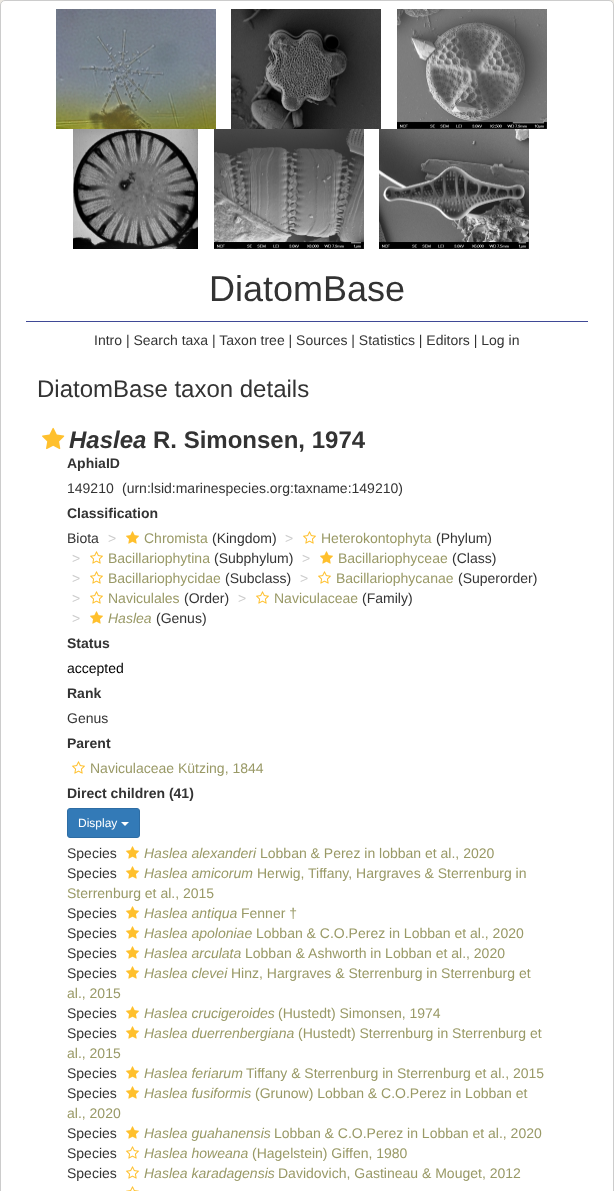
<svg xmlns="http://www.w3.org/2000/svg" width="614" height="1191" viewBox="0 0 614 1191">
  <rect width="100%" height="100%" fill="rgb(236,233,226)"/>
  <rect x="0.5" y="0.5" width="613" height="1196" rx="4.5" fill="rgb(255,255,255)" stroke="rgb(204,204,204)"/>
  <image x="56" y="9" width="160" height="120" href="pic1.png"/>
  <image x="231" y="9" width="150" height="120" href="pic2.png"/>
  <image x="397" y="9" width="150" height="120" href="pic3.png"/>
  <image x="73" y="129" width="125" height="120" href="pic4.png"/>
  <image x="214" y="129" width="150" height="120" href="pic5.png"/>
  <image x="379" y="129" width="150" height="120" href="pic6.png"/>
  <rect x="26" y="321" width="562" height="1" fill="rgb(63,73,150)"/>
  <text x="209" y="301" font-family="Liberation Sans" font-size="36" fill="rgb(51,51,51)">DiatomBase</text>
  <text x="94" y="345" font-family="Liberation Sans" font-size="14" fill="rgb(51,51,51)">Intro | Search taxa | Taxon tree | Sources | Statistics | Editors | Log in</text>
  <text x="37" y="397" font-family="Liberation Sans" font-size="24" fill="rgb(51,51,51)">DiatomBase taxon details</text>
  <image x="42" y="427" width="23" height="23" href="pic7.png"/>
  <text x="69" y="448" font-family="Liberation Sans" font-size="24" font-weight="bold" font-style="italic" fill="rgb(51,51,51)">Haslea</text>
  <text x="153" y="448" font-family="Liberation Sans" font-size="24" font-weight="bold" fill="rgb(51,51,51)">R. Simonsen, 1974</text>
  <text x="67" y="468" font-family="Liberation Sans" font-size="14" font-weight="bold" fill="rgb(51,51,51)">AphiaID</text>
  <g font-family="Liberation Sans" font-size="14" fill="rgb(51,51,51)">
    <text x="67" y="493">149210</text>
    <text x="122" y="493">(urn:lsid:marinespecies.org:taxname:149210)</text>
  </g>
  <text x="67" y="518" font-family="Liberation Sans" font-size="14" font-weight="bold" fill="rgb(51,51,51)">Classification</text>
  <text x="67" y="543" font-family="Liberation Sans" font-size="14" fill="rgb(51,51,51)">Biota</text>
  <text x="108" y="543" font-family="Liberation Sans" font-size="14" fill="rgb(204,204,204)">&gt;</text>
  <image x="126" y="531" width="13" height="13" href="pic8.png"/>
  <text x="144" y="543" font-family="Liberation Sans" font-size="14" fill="rgb(153,153,102)">Chromista</text>
  <text x="212" y="543" font-family="Liberation Sans" font-size="14" fill="rgb(51,51,51)">(Kingdom)</text>
  <text x="285" y="543" font-family="Liberation Sans" font-size="14" fill="rgb(204,204,204)">&gt;</text>
  <image x="303" y="531" width="13" height="13" href="pic9.png"/>
  <text x="321" y="543" font-family="Liberation Sans" font-size="14" fill="rgb(153,153,102)">Heterokontophyta</text>
  <text x="436" y="543" font-family="Liberation Sans" font-size="14" fill="rgb(51,51,51)">(Phylum)</text>
  <text x="72" y="563" font-family="Liberation Sans" font-size="14" fill="rgb(204,204,204)">&gt;</text>
  <image x="90" y="551" width="13" height="13" href="pic9.png"/>
  <text x="108" y="563" font-family="Liberation Sans" font-size="14" fill="rgb(153,153,102)">Bacillariophytina</text>
  <text x="214" y="563" font-family="Liberation Sans" font-size="14" fill="rgb(51,51,51)">(Subphylum)</text>
  <text x="302" y="563" font-family="Liberation Sans" font-size="14" fill="rgb(204,204,204)">&gt;</text>
  <image x="320" y="551" width="13" height="13" href="pic8.png"/>
  <text x="338" y="563" font-family="Liberation Sans" font-size="14" fill="rgb(153,153,102)">Bacillariophyceae</text>
  <text x="452" y="563" font-family="Liberation Sans" font-size="14" fill="rgb(51,51,51)">(Class)</text>
  <text x="72" y="583" font-family="Liberation Sans" font-size="14" fill="rgb(204,204,204)">&gt;</text>
  <image x="90" y="571" width="13" height="13" href="pic9.png"/>
  <text x="108" y="583" font-family="Liberation Sans" font-size="14" fill="rgb(153,153,102)">Bacillariophycidae</text>
  <text x="225" y="583" font-family="Liberation Sans" font-size="14" fill="rgb(51,51,51)">(Subclass)</text>
  <text x="300" y="583" font-family="Liberation Sans" font-size="14" fill="rgb(204,204,204)">&gt;</text>
  <image x="318" y="571" width="13" height="13" href="pic9.png"/>
  <text x="336" y="583" font-family="Liberation Sans" font-size="14" fill="rgb(153,153,102)">Bacillariophycanae</text>
  <text x="458" y="583" font-family="Liberation Sans" font-size="14" fill="rgb(51,51,51)">(Superorder)</text>
  <text x="72" y="603" font-family="Liberation Sans" font-size="14" fill="rgb(204,204,204)">&gt;</text>
  <image x="90" y="591" width="13" height="13" href="pic9.png"/>
  <text x="108" y="603" font-family="Liberation Sans" font-size="14" fill="rgb(153,153,102)">Naviculales</text>
  <text x="184" y="603" font-family="Liberation Sans" font-size="14" fill="rgb(51,51,51)">(Order)</text>
  <text x="238" y="603" font-family="Liberation Sans" font-size="14" fill="rgb(204,204,204)">&gt;</text>
  <image x="256" y="591" width="13" height="13" href="pic9.png"/>
  <text x="274" y="603" font-family="Liberation Sans" font-size="14" fill="rgb(153,153,102)">Naviculaceae</text>
  <text x="362" y="603" font-family="Liberation Sans" font-size="14" fill="rgb(51,51,51)">(Family)</text>
  <text x="72" y="623" font-family="Liberation Sans" font-size="14" fill="rgb(204,204,204)">&gt;</text>
  <image x="90" y="611" width="13" height="13" href="pic8.png"/>
  <text x="108" y="623" font-family="Liberation Sans" font-size="14" font-style="italic" fill="rgb(153,153,102)">Haslea</text>
  <text x="156" y="623" font-family="Liberation Sans" font-size="14" fill="rgb(51,51,51)">(Genus)</text>
  <text x="67" y="648" font-family="Liberation Sans" font-size="14" font-weight="bold" fill="rgb(51,51,51)">Status</text>
  <text x="67" y="673" font-family="Liberation Sans" font-size="14" fill="rgb(0,0,0)">accepted</text>
  <text x="67" y="698" font-family="Liberation Sans" font-size="14" font-weight="bold" fill="rgb(51,51,51)">Rank</text>
  <text x="67" y="723" font-family="Liberation Sans" font-size="14" fill="rgb(51,51,51)">Genus</text>
  <text x="67" y="748" font-family="Liberation Sans" font-size="14" font-weight="bold" fill="rgb(51,51,51)">Parent</text>
  <image x="72" y="761" width="13" height="13" href="pic9.png"/>
  <text x="90" y="773" font-family="Liberation Sans" font-size="14" fill="rgb(153,153,102)">Naviculaceae Kützing, 1844</text>
  <text x="67" y="798" font-family="Liberation Sans" font-size="14" font-weight="bold" fill="rgb(51,51,51)">Direct children (41)</text>
  <rect x="67.5" y="808.5" width="72" height="29" rx="2.5" fill="rgb(51,122,183)" stroke="rgb(46,109,164)"/>
  <text x="78" y="827" font-family="Liberation Sans" font-size="12" fill="rgb(255,255,255)">Display</text>
  <path d="M121 822H129L125 826Z" fill="rgb(255,255,255)"/>
  <text x="67" y="858" font-family="Liberation Sans" font-size="14" fill="rgb(51,51,51)">Species</text>
  <image x="126" y="846" width="13" height="13" href="pic8.png"/>
  <text x="144" y="858" font-family="Liberation Sans" font-size="14" font-style="italic" fill="rgb(153,153,102)">Haslea alexanderi</text>
  <text x="260" y="858" font-family="Liberation Sans" font-size="14" fill="rgb(153,153,102)">Lobban &amp; Perez in lobban et al., 2020</text>
  <text x="67" y="878" font-family="Liberation Sans" font-size="14" fill="rgb(51,51,51)">Species</text>
  <image x="126" y="866" width="13" height="13" href="pic8.png"/>
  <text x="144" y="878" font-family="Liberation Sans" font-size="14" font-style="italic" fill="rgb(153,153,102)">Haslea amicorum</text>
  <g font-family="Liberation Sans" font-size="14" fill="rgb(153,153,102)">
    <text x="257" y="878">Herwig, Tiffany, Hargraves &amp; Sterrenburg in</text>
    <text x="67" y="898">Sterrenburg et al., 2015</text>
  </g>
  <text x="67" y="918" font-family="Liberation Sans" font-size="14" fill="rgb(51,51,51)">Species</text>
  <image x="126" y="906" width="13" height="13" href="pic8.png"/>
  <text x="144" y="918" font-family="Liberation Sans" font-size="14" font-style="italic" fill="rgb(153,153,102)">Haslea antiqua</text>
  <text x="241" y="918" font-family="Liberation Sans" font-size="14" fill="rgb(153,153,102)">Fenner †</text>
  <text x="67" y="938" font-family="Liberation Sans" font-size="14" fill="rgb(51,51,51)">Species</text>
  <image x="126" y="926" width="13" height="13" href="pic8.png"/>
  <text x="144" y="938" font-family="Liberation Sans" font-size="14" font-style="italic" fill="rgb(153,153,102)">Haslea apoloniae</text>
  <text x="256" y="938" font-family="Liberation Sans" font-size="14" fill="rgb(153,153,102)">Lobban &amp; C.O.Perez in Lobban et al., 2020</text>
  <text x="67" y="958" font-family="Liberation Sans" font-size="14" fill="rgb(51,51,51)">Species</text>
  <image x="126" y="946" width="13" height="13" href="pic8.png"/>
  <text x="144" y="958" font-family="Liberation Sans" font-size="14" font-style="italic" fill="rgb(153,153,102)">Haslea arculata</text>
  <text x="245" y="958" font-family="Liberation Sans" font-size="14" fill="rgb(153,153,102)">Lobban &amp; Ashworth in Lobban et al., 2020</text>
  <text x="67" y="978" font-family="Liberation Sans" font-size="14" fill="rgb(51,51,51)">Species</text>
  <image x="126" y="966" width="13" height="13" href="pic8.png"/>
  <text x="144" y="978" font-family="Liberation Sans" font-size="14" font-style="italic" fill="rgb(153,153,102)">Haslea clevei</text>
  <g font-family="Liberation Sans" font-size="14" fill="rgb(153,153,102)">
    <text x="231" y="978">Hinz, Hargraves &amp; Sterrenburg in Sterrenburg et</text>
    <text x="67" y="998">al., 2015</text>
  </g>
  <text x="67" y="1018" font-family="Liberation Sans" font-size="14" fill="rgb(51,51,51)">Species</text>
  <image x="126" y="1006" width="13" height="13" href="pic8.png"/>
  <text x="144" y="1018" font-family="Liberation Sans" font-size="14" font-style="italic" fill="rgb(153,153,102)">Haslea crucigeroides</text>
  <text x="278" y="1018" font-family="Liberation Sans" font-size="14" fill="rgb(153,153,102)">(Hustedt) Simonsen, 1974</text>
  <text x="67" y="1038" font-family="Liberation Sans" font-size="14" fill="rgb(51,51,51)">Species</text>
  <image x="126" y="1026" width="13" height="13" href="pic8.png"/>
  <text x="144" y="1038" font-family="Liberation Sans" font-size="14" font-style="italic" fill="rgb(153,153,102)">Haslea duerrenbergiana</text>
  <g font-family="Liberation Sans" font-size="14" fill="rgb(153,153,102)">
    <text x="298" y="1038">(Hustedt) Sterrenburg in Sterrenburg et</text>
    <text x="67" y="1058">al., 2015</text>
  </g>
  <text x="67" y="1078" font-family="Liberation Sans" font-size="14" fill="rgb(51,51,51)">Species</text>
  <image x="126" y="1066" width="13" height="13" href="pic8.png"/>
  <text x="144" y="1078" font-family="Liberation Sans" font-size="14" font-style="italic" fill="rgb(153,153,102)">Haslea feriarum</text>
  <text x="246" y="1078" font-family="Liberation Sans" font-size="14" fill="rgb(153,153,102)">Tiffany &amp; Sterrenburg in Sterrenburg et al., 2015</text>
  <text x="67" y="1098" font-family="Liberation Sans" font-size="14" fill="rgb(51,51,51)">Species</text>
  <image x="126" y="1086" width="13" height="13" href="pic8.png"/>
  <text x="144" y="1098" font-family="Liberation Sans" font-size="14" font-style="italic" fill="rgb(153,153,102)">Haslea fusiformis</text>
  <g font-family="Liberation Sans" font-size="14" fill="rgb(153,153,102)">
    <text x="255" y="1098">(Grunow) Lobban &amp; C.O.Perez in Lobban et</text>
    <text x="67" y="1118">al., 2020</text>
  </g>
  <text x="67" y="1138" font-family="Liberation Sans" font-size="14" fill="rgb(51,51,51)">Species</text>
  <image x="126" y="1126" width="13" height="13" href="pic8.png"/>
  <text x="144" y="1138" font-family="Liberation Sans" font-size="14" font-style="italic" fill="rgb(153,153,102)">Haslea guahanensis</text>
  <text x="274" y="1138" font-family="Liberation Sans" font-size="14" fill="rgb(153,153,102)">Lobban &amp; C.O.Perez in Lobban et al., 2020</text>
  <text x="67" y="1158" font-family="Liberation Sans" font-size="14" fill="rgb(51,51,51)">Species</text>
  <image x="126" y="1146" width="13" height="13" href="pic9.png"/>
  <text x="144" y="1158" font-family="Liberation Sans" font-size="14" font-style="italic" fill="rgb(153,153,102)">Haslea howeana</text>
  <text x="252" y="1158" font-family="Liberation Sans" font-size="14" fill="rgb(153,153,102)">(Hagelstein) Giffen, 1980</text>
  <text x="67" y="1178" font-family="Liberation Sans" font-size="14" fill="rgb(51,51,51)">Species</text>
  <image x="126" y="1166" width="13" height="13" href="pic9.png"/>
  <text x="144" y="1178" font-family="Liberation Sans" font-size="14" font-style="italic" fill="rgb(153,153,102)">Haslea karadagensis</text>
  <text x="278" y="1178" font-family="Liberation Sans" font-size="14" fill="rgb(153,153,102)">Davidovich, Gastineau &amp; Mouget, 2012</text>
  <image x="126" y="1186" width="13" height="5" href="pic10.png"/>
</svg>
